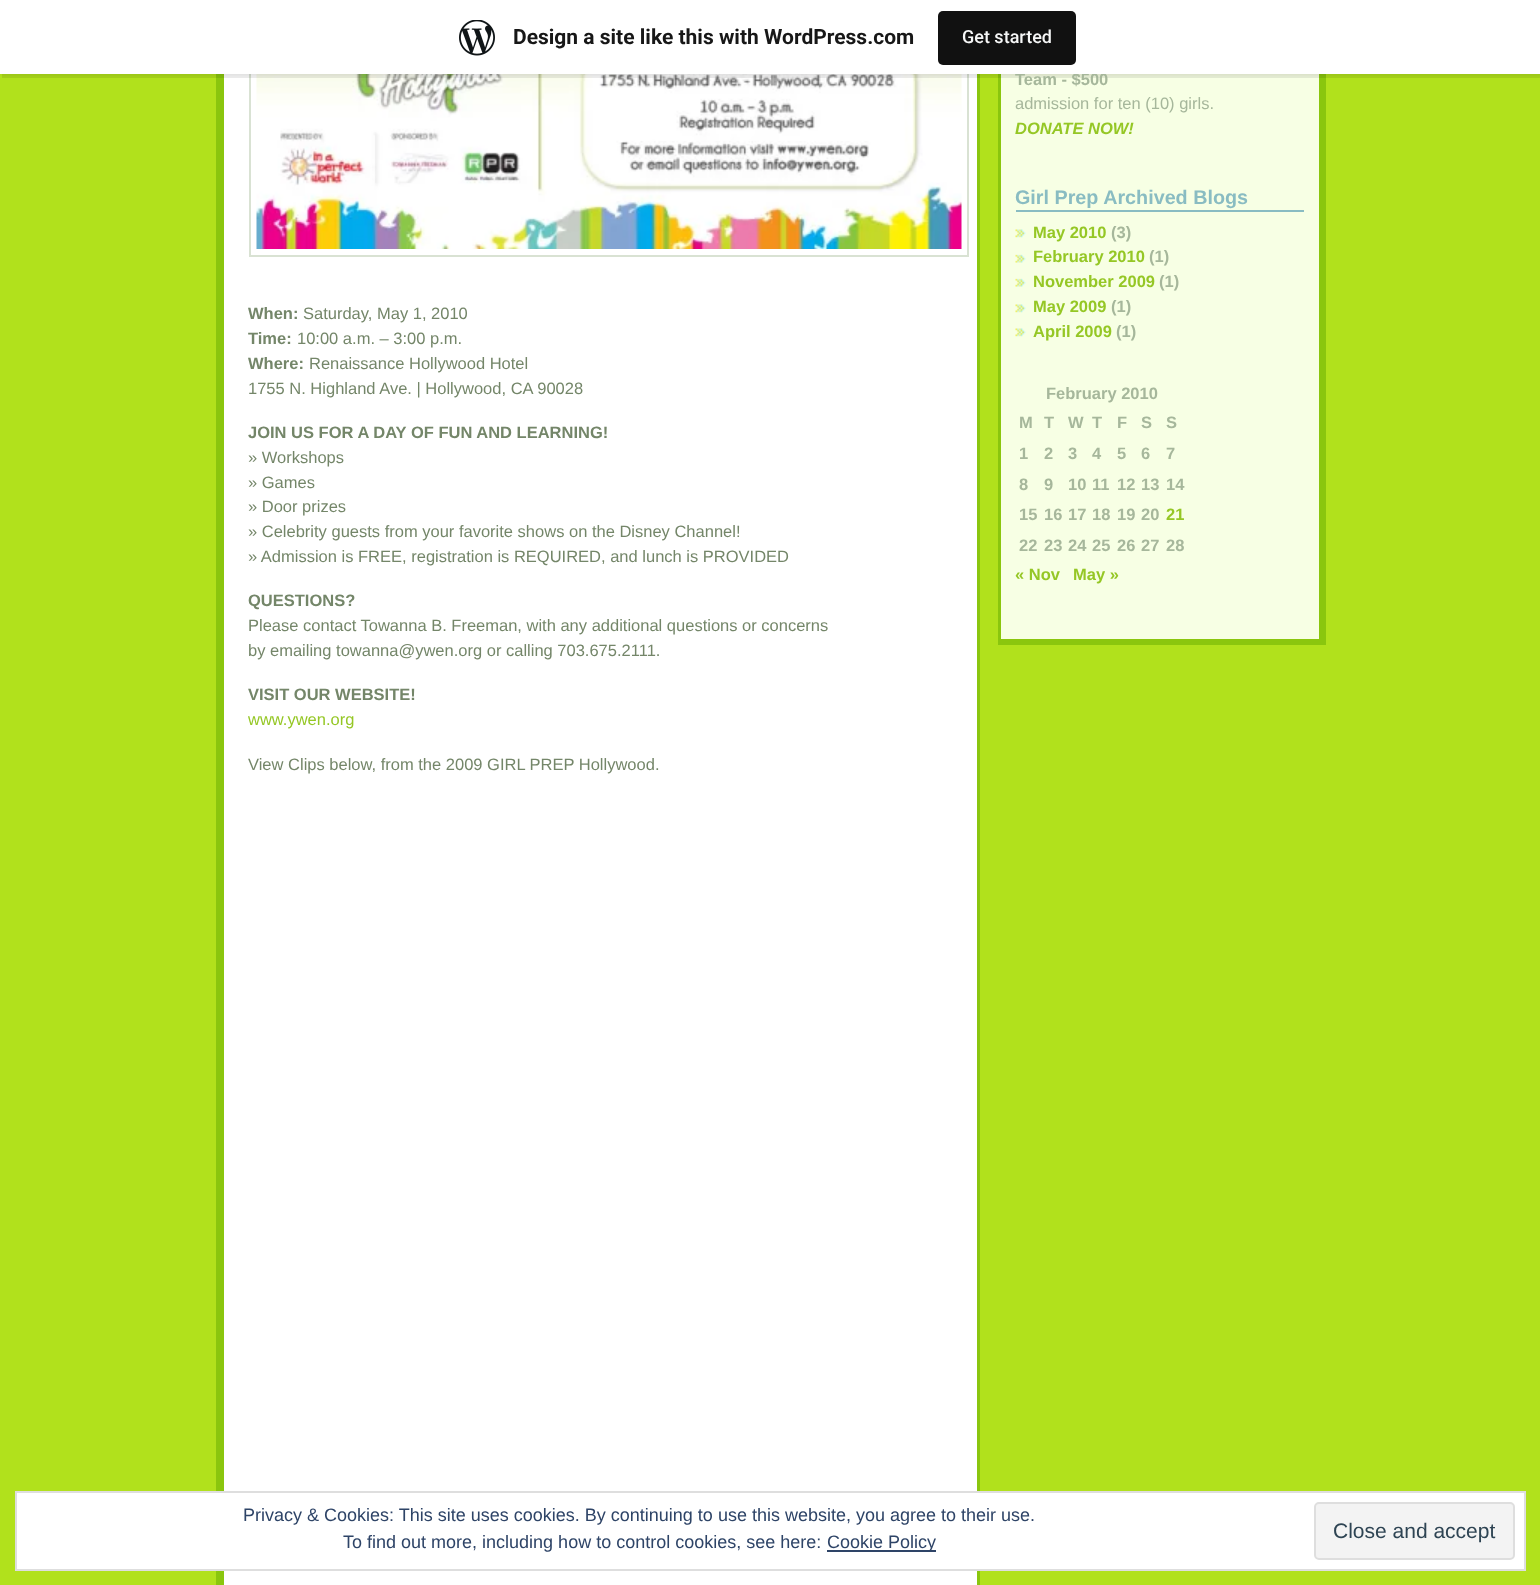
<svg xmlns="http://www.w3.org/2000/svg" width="1540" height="1585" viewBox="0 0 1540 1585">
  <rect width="100%" height="100%" fill="rgb(177,225,28)"/>
  <rect x="224" y="74" width="753" height="1511" fill="rgb(255,255,255)"/>
  <rect x="977" y="74" width="3" height="1511" fill="rgb(138,198,14)"/>
  <rect x="216" y="74" width="8" height="1511" fill="rgb(138,198,14)"/>
  <rect x="250" y="-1" width="718" height="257" fill="none" stroke="rgb(217,226,211)" stroke-width="2"/>
  <image x="256" y="74" width="706" height="175" href="pic2.png"/>
  <rect x="1001" y="74" width="318" height="565" fill="rgb(247,255,228)"/>
  <rect x="1319" y="74" width="7" height="571" fill="rgb(138,198,14)"/>
  <rect x="998" y="639" width="328" height="6" fill="rgb(138,198,14)"/>
  <rect x="998" y="74" width="3" height="571" fill="rgb(138,198,14)"/>
  <rect x="0" y="2" width="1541" height="73" fill="rgba(0,0,0,0.05)" filter="blur(1.5px)"/>
  <path d="M2 74V78H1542V5H1540V74Z" fill="rgba(0,0,0,0.08)"/>
  <text x="1015" y="85" font-family="Liberation Sans" font-size="16.5" font-weight="bold" fill="rgb(166,183,155)">Team - $500</text>
  <rect x="0" y="0" width="1540" height="74" fill="rgb(255,255,255)"/>
  <image x="459" y="20" width="36" height="36" href="pic1.png"/>
  <text x="513" y="44" font-family="Roboto" font-size="21" font-weight="bold" fill="rgb(23,23,23)">Design a site like this with WordPress.com</text>
  <rect x="938" y="11" width="138" height="54" rx="5" fill="rgb(17,17,17)"/>
  <text x="962" y="43" font-family="Roboto" font-size="18" font-weight="500" fill="rgb(246,247,247)">Get started</text>
  <text x="248" y="319" font-family="Liberation Sans" font-size="16.5" font-weight="bold" fill="rgb(116,134,105)">When:</text>
  <text x="303" y="319" font-family="Liberation Sans" font-size="16.5" fill="rgb(116,134,105)">Saturday, May 1, 2010</text>
  <text x="248" y="344" font-family="Liberation Sans" font-size="16.5" font-weight="bold" fill="rgb(116,134,105)">Time:</text>
  <text x="297" y="344" font-family="Liberation Sans" font-size="16.5" fill="rgb(116,134,105)">10:00 a.m. – 3:00 p.m.</text>
  <text x="248" y="369" font-family="Liberation Sans" font-size="16.5" font-weight="bold" fill="rgb(116,134,105)">Where:</text>
  <g font-family="Liberation Sans" font-size="16.5" fill="rgb(116,134,105)">
    <text x="309" y="369">Renaissance Hollywood Hotel</text>
    <text x="248" y="394">1755 N. Highland Ave. | Hollywood, CA 90028</text>
  </g>
  <text x="248" y="438" font-family="Liberation Sans" font-size="16.5" font-weight="bold" fill="rgb(116,134,105)">JOIN US FOR A DAY OF FUN AND LEARNING!</text>
  <g font-family="Liberation Sans" font-size="16.5" fill="rgb(116,134,105)">
    <text>
      <tspan x="248" y="463">» Workshops</tspan>
      <tspan x="248" y="488">» Games</tspan>
      <tspan x="248" y="512">» Door prizes</tspan>
      <tspan x="248" y="537">» Celebrity guests from your favorite shows on the Disney Channel!</tspan>
      <tspan x="248" y="562">» Admission is FREE, registration is REQUIRED, and lunch is PROVIDED</tspan>
    </text>
  </g>
  <text x="248" y="606" font-family="Liberation Sans" font-size="16.5" font-weight="bold" fill="rgb(116,134,105)">QUESTIONS?</text>
  <g font-family="Liberation Sans" font-size="16.5" fill="rgb(116,134,105)">
    <text>
      <tspan x="248" y="631">Please contact Towanna B. Freeman, with any additional questions or concerns</tspan>
      <tspan x="248" y="656">by emailing towanna@ywen.org or calling 703.675.2111.</tspan>
    </text>
  </g>
  <text x="248" y="700" font-family="Liberation Sans" font-size="16.5" font-weight="bold" fill="rgb(116,134,105)">VISIT OUR WEBSITE!</text>
  <text x="248" y="725" font-family="Liberation Sans" font-size="16.5" fill="rgb(149,199,37)">www.ywen.org</text>
  <text x="248" y="770" font-family="Liberation Sans" font-size="16.5" fill="rgb(116,134,105)">View Clips below, from the 2009 GIRL PREP Hollywood.</text>
  <text x="1015" y="109" font-family="Liberation Sans" font-size="16.5" fill="rgb(166,183,155)">admission for ten (10) girls.</text>
  <text x="1015" y="134" font-family="Liberation Sans" font-size="16.5" font-weight="bold" font-style="italic" fill="rgb(149,199,37)">DONATE NOW!</text>
  <rect x="1016" y="210" width="288" height="2" fill="rgb(137,188,194)"/>
  <text x="1015" y="204" font-family="Liberation Sans" font-size="19.75" font-weight="bold" fill="rgb(137,188,194)">Girl Prep Archived Blogs</text>
  <image x="1015" y="229" width="11" height="9" href="pic3.png"/>
  <text x="1033" y="238" font-family="Liberation Sans" font-size="16.5" font-weight="bold" fill="rgb(149,199,37)">May 2010</text>
  <text x="1111" y="238" font-family="Liberation Sans" font-size="16.5" font-weight="bold" fill="rgb(166,183,155)">(3)</text>
  <image x="1015" y="254" width="11" height="9" href="pic4.png"/>
  <text x="1033" y="262" font-family="Liberation Sans" font-size="16.5" font-weight="bold" fill="rgb(149,199,37)">February 2010</text>
  <text x="1149" y="262" font-family="Liberation Sans" font-size="16.5" font-weight="bold" fill="rgb(166,183,155)">(1)</text>
  <image x="1015" y="278" width="11" height="9" href="pic4.png"/>
  <text x="1033" y="287" font-family="Liberation Sans" font-size="16.5" font-weight="bold" fill="rgb(149,199,37)">November 2009</text>
  <text x="1159" y="287" font-family="Liberation Sans" font-size="16.5" font-weight="bold" fill="rgb(166,183,155)">(1)</text>
  <image x="1015" y="304" width="11" height="9" href="pic3.png"/>
  <text x="1033" y="312" font-family="Liberation Sans" font-size="16.5" font-weight="bold" fill="rgb(149,199,37)">May 2009</text>
  <text x="1111" y="312" font-family="Liberation Sans" font-size="16.5" font-weight="bold" fill="rgb(166,183,155)">(1)</text>
  <image x="1015" y="328" width="11" height="9" href="pic3.png"/>
  <text x="1033" y="337" font-family="Liberation Sans" font-size="16.5" font-weight="bold" fill="rgb(149,199,37)">April 2009</text>
  <g font-family="Liberation Sans" font-size="16.5" font-weight="bold" fill="rgb(166,183,155)">
    <text x="1116" y="337">(1)</text>
    <text x="1046" y="399">February 2010</text>
    <text x="1019" y="428">M</text>
    <text x="1044" y="428">T</text>
    <text x="1068" y="428">W</text>
    <text x="1092" y="428">T</text>
    <text x="1117" y="428">F</text>
    <text x="1141" y="428">S</text>
    <text x="1166" y="428">S</text>
    <text x="1019" y="459">1</text>
    <text x="1044" y="459">2</text>
    <text x="1068" y="459">3</text>
    <text x="1092" y="459">4</text>
    <text x="1117" y="459">5</text>
    <text x="1141" y="459">6</text>
    <text x="1166" y="459">7</text>
    <text x="1019" y="490">8</text>
    <text x="1044" y="490">9</text>
    <text x="1068" y="490">10</text>
    <text x="1092" y="490">11</text>
    <text x="1117" y="490">12</text>
    <text x="1141" y="490">13</text>
    <text x="1166" y="490">14</text>
    <text x="1019" y="520">15</text>
    <text x="1044" y="520">16</text>
    <text x="1068" y="520">17</text>
    <text x="1092" y="520">18</text>
    <text x="1117" y="520">19</text>
    <text x="1141" y="520">20</text>
  </g>
  <text x="1166" y="520" font-family="Liberation Sans" font-size="16.5" font-weight="bold" fill="rgb(149,199,37)">21</text>
  <g font-family="Liberation Sans" font-size="16.5" font-weight="bold" fill="rgb(166,183,155)">
    <text x="1019" y="551">22</text>
    <text x="1044" y="551">23</text>
    <text x="1068" y="551">24</text>
    <text x="1092" y="551">25</text>
    <text x="1117" y="551">26</text>
    <text x="1141" y="551">27</text>
    <text x="1166" y="551">28</text>
  </g>
  <g font-family="Liberation Sans" font-size="16.5" font-weight="bold" fill="rgb(149,199,37)">
    <text x="1015" y="580">« Nov</text>
    <text x="1073" y="580">May »</text>
  </g>
  <rect x="16" y="1492" width="1509" height="78" fill="rgb(255,255,255)" stroke="rgb(222,222,222)" stroke-width="2"/>
  <g font-family="Liberation Sans" font-size="18" fill="rgb(46,68,103)">
    <text x="243" y="1521">Privacy &amp; Cookies: This site uses cookies. By continuing to use this website, you agree to their use.</text>
    <text x="343" y="1548">To find out more, including how to control cookies, see here:</text>
  </g>
  <rect x="827" y="1550" width="109" height="2" fill="rgb(46,68,103)"/>
  <text x="827" y="1548" font-family="Liberation Sans" font-size="18" fill="rgb(46,68,103)">Cookie Policy</text>
  <rect x="1315" y="1503" width="199" height="56" rx="4" fill="rgb(243,243,243)" stroke="rgb(222,222,222)" stroke-width="2"/>
  <text x="1333" y="1538" font-family="Liberation Sans" font-size="21" fill="rgb(46,68,83)">Close and accept</text>
</svg>
